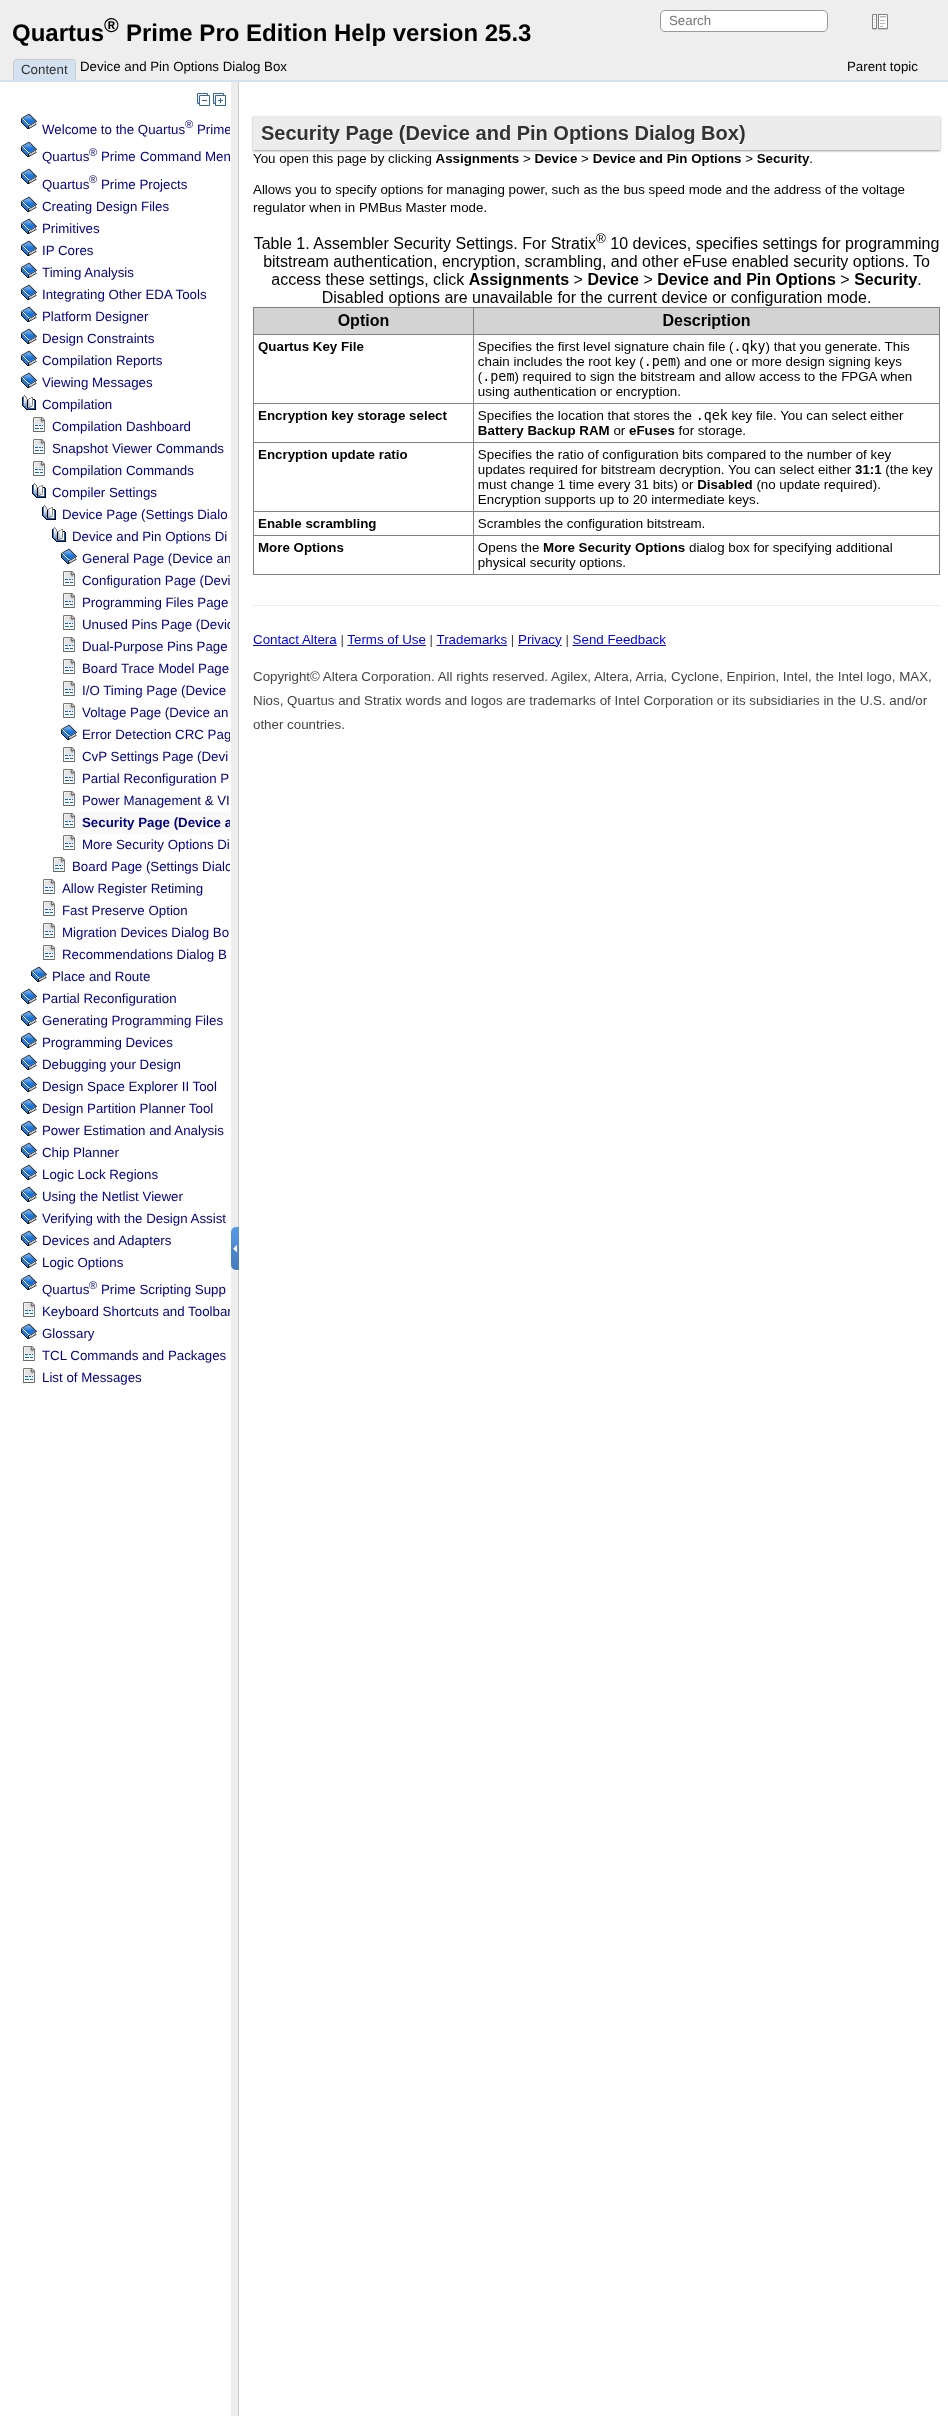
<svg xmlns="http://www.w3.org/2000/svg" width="948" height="2419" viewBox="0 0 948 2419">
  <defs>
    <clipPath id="clip1"><rect x="1" y="83" width="229" height="2334"/></clipPath>
  </defs>
  <rect width="100%" height="100%" fill="rgb(255,255,255)"/>
  <rect x="0" y="0" width="948" height="80" fill="rgb(238,238,238)"/>
  <text x="12" y="41" font-family="Liberation Sans" font-size="24" font-weight="bold" fill="rgb(0,0,0)">Quartus</text>
  <text x="104" y="32" font-family="Liberation Sans" font-size="20" font-weight="bold" fill="rgb(0,0,0)">®</text>
  <text x="126" y="41" font-family="Liberation Sans" font-size="24" font-weight="bold" fill="rgb(0,0,0)">Prime Pro Edition Help version 25.3</text>
  <rect x="660.5" y="10.5" width="167" height="21" rx="4.5" fill="rgb(255,255,255)" stroke="rgb(153,153,153)"/>
  <text x="669" y="25" font-family="Liberation Sans" font-size="13.3" fill="rgb(117,117,117)">Search</text>
  <image x="872" y="14" width="16" height="16" href="pic1.png"/>
  <path d="M17 59H72C74 59 76 61 76 63V80H13V63C13 61 15 59 17 59Z" fill="rgb(211,225,241)"/>
  <path d="M17 59H72C74 59 76 61 76 63V80H13V63C13 61 15 59 17 59ZM17 60H72C74 60 75 61 75 63V80H14V63C14 61 15 60 17 60Z" fill="rgb(204,204,204)" fill-rule="evenodd"/>
  <text x="21" y="74" font-family="Liberation Sans" font-size="13.3" fill="rgb(51,51,51)">Content</text>
  <g font-family="Liberation Sans" font-size="13.3" fill="rgb(0,0,0)">
    <text x="80" y="71">Device and Pin Options Dialog Box</text>
    <text x="847" y="71">Parent topic</text>
  </g>
  <rect x="0" y="80" width="948" height="2" fill="rgb(211,225,241)"/>
  <image x="197" y="93" width="13" height="13" href="pic2.png"/>
  <image x="213" y="93" width="13" height="13" href="pic3.png"/>
  <image x="21" y="113" width="16" height="16" href="pic4.png"/>
  <text x="42" y="134" font-family="Liberation Sans" font-size="13.3" fill="rgb(0,0,128)">Welcome to the Quartus</text>
  <text x="185" y="128" font-family="Liberation Sans" font-size="11" fill="rgb(0,0,128)">®</text>
  <g clip-path="url(#clip1)">
    <text x="197" y="134" font-family="Liberation Sans" font-size="13.3" fill="rgb(0,0,128)">Prime</text>
  </g>
  <image x="21" y="141" width="16" height="16" href="pic4.png"/>
  <text x="42" y="161" font-family="Liberation Sans" font-size="13.3" fill="rgb(0,0,128)">Quartus</text>
  <text x="89" y="156" font-family="Liberation Sans" font-size="11" fill="rgb(0,0,128)">®</text>
  <text x="101" y="161" font-family="Liberation Sans" font-size="13.3" fill="rgb(0,0,128)">Prime</text>
  <g clip-path="url(#clip1)">
    <text x="140" y="161" font-family="Liberation Sans" font-size="13.3" fill="rgb(0,0,128)">Command Men</text>
  </g>
  <image x="21" y="168" width="16" height="16" href="pic4.png"/>
  <text x="42" y="189" font-family="Liberation Sans" font-size="13.3" fill="rgb(0,0,128)">Quartus</text>
  <text x="89" y="183" font-family="Liberation Sans" font-size="11" fill="rgb(0,0,128)">®</text>
  <text x="101" y="189" font-family="Liberation Sans" font-size="13.3" fill="rgb(0,0,128)">Prime Projects</text>
  <image x="21" y="196" width="16" height="16" href="pic4.png"/>
  <text x="42" y="211" font-family="Liberation Sans" font-size="13.3" fill="rgb(0,0,128)">Creating Design Files</text>
  <image x="21" y="218" width="16" height="16" href="pic4.png"/>
  <text x="42" y="233" font-family="Liberation Sans" font-size="13.3" fill="rgb(0,0,128)">Primitives</text>
  <image x="21" y="240" width="16" height="16" href="pic4.png"/>
  <text x="42" y="255" font-family="Liberation Sans" font-size="13.3" fill="rgb(0,0,128)">IP Cores</text>
  <image x="21" y="262" width="16" height="16" href="pic4.png"/>
  <text x="42" y="277" font-family="Liberation Sans" font-size="13.3" fill="rgb(0,0,128)">Timing Analysis</text>
  <image x="21" y="284" width="16" height="16" href="pic4.png"/>
  <text x="42" y="299" font-family="Liberation Sans" font-size="13.3" fill="rgb(0,0,128)">Integrating Other EDA Tools</text>
  <image x="21" y="306" width="16" height="16" href="pic4.png"/>
  <text x="42" y="321" font-family="Liberation Sans" font-size="13.3" fill="rgb(0,0,128)">Platform Designer</text>
  <image x="21" y="328" width="16" height="16" href="pic4.png"/>
  <text x="42" y="343" font-family="Liberation Sans" font-size="13.3" fill="rgb(0,0,128)">Design Constraints</text>
  <image x="21" y="350" width="16" height="16" href="pic4.png"/>
  <text x="42" y="365" font-family="Liberation Sans" font-size="13.3" fill="rgb(0,0,128)">Compilation Reports</text>
  <image x="21" y="372" width="16" height="16" href="pic4.png"/>
  <text x="42" y="387" font-family="Liberation Sans" font-size="13.3" fill="rgb(0,0,128)">Viewing Messages</text>
  <image x="22" y="395" width="14" height="15" href="pic5.png"/>
  <text x="42" y="409" font-family="Liberation Sans" font-size="13.3" fill="rgb(0,0,128)">Compilation</text>
  <image x="33" y="417" width="12" height="15" href="pic6.png"/>
  <text x="52" y="431" font-family="Liberation Sans" font-size="13.3" fill="rgb(0,0,128)">Compilation Dashboard</text>
  <image x="33" y="439" width="12" height="15" href="pic6.png"/>
  <text x="52" y="453" font-family="Liberation Sans" font-size="13.3" fill="rgb(0,0,128)">Snapshot Viewer Commands</text>
  <image x="33" y="461" width="12" height="15" href="pic6.png"/>
  <text x="52" y="475" font-family="Liberation Sans" font-size="13.3" fill="rgb(0,0,128)">Compilation Commands</text>
  <image x="32" y="483" width="14" height="15" href="pic5.png"/>
  <text x="52" y="497" font-family="Liberation Sans" font-size="13.3" fill="rgb(0,0,128)">Compiler Settings</text>
  <image x="42" y="505" width="14" height="15" href="pic5.png"/>
  <text x="62" y="519" font-family="Liberation Sans" font-size="13.3" fill="rgb(0,0,128)">Device Page (Settings Dialo</text>
  <image x="52" y="527" width="14" height="15" href="pic5.png"/>
  <text x="72" y="541" font-family="Liberation Sans" font-size="13.3" fill="rgb(0,0,128)">Device and Pin Options Di</text>
  <image x="61" y="548" width="16" height="16" href="pic4.png"/>
  <g clip-path="url(#clip1)">
    <text x="82" y="563" font-family="Liberation Sans" font-size="13.3" fill="rgb(0,0,128)">General Page (Device an</text>
  </g>
  <image x="63" y="571" width="12" height="15" href="pic6.png"/>
  <g clip-path="url(#clip1)">
    <text x="82" y="585" font-family="Liberation Sans" font-size="13.3" fill="rgb(0,0,128)">Configuration Page (Devi</text>
  </g>
  <image x="63" y="593" width="12" height="15" href="pic6.png"/>
  <text x="82" y="607" font-family="Liberation Sans" font-size="13.3" fill="rgb(0,0,128)">Programming Files Page</text>
  <image x="63" y="615" width="12" height="15" href="pic6.png"/>
  <g clip-path="url(#clip1)">
    <text x="82" y="629" font-family="Liberation Sans" font-size="13.3" fill="rgb(0,0,128)">Unused Pins Page (Devic</text>
  </g>
  <image x="63" y="637" width="12" height="15" href="pic6.png"/>
  <text x="82" y="651" font-family="Liberation Sans" font-size="13.3" fill="rgb(0,0,128)">Dual-Purpose Pins Page</text>
  <image x="63" y="659" width="12" height="15" href="pic6.png"/>
  <text x="82" y="673" font-family="Liberation Sans" font-size="13.3" fill="rgb(0,0,128)">Board Trace Model Page</text>
  <image x="63" y="681" width="12" height="15" href="pic6.png"/>
  <text x="82" y="695" font-family="Liberation Sans" font-size="13.3" fill="rgb(0,0,128)">I/O Timing Page (Device</text>
  <image x="63" y="703" width="12" height="15" href="pic6.png"/>
  <text x="82" y="717" font-family="Liberation Sans" font-size="13.3" fill="rgb(0,0,128)">Voltage Page (Device an</text>
  <image x="61" y="724" width="16" height="16" href="pic4.png"/>
  <g clip-path="url(#clip1)">
    <text x="82" y="739" font-family="Liberation Sans" font-size="13.3" fill="rgb(0,0,128)">Error Detection CRC Pag</text>
  </g>
  <image x="63" y="747" width="12" height="15" href="pic6.png"/>
  <text x="82" y="761" font-family="Liberation Sans" font-size="13.3" fill="rgb(0,0,128)">CvP Settings Page (Devi</text>
  <image x="63" y="769" width="12" height="15" href="pic6.png"/>
  <text x="82" y="783" font-family="Liberation Sans" font-size="13.3" fill="rgb(0,0,128)">Partial Reconfiguration P</text>
  <image x="63" y="791" width="12" height="15" href="pic6.png"/>
  <text x="82" y="805" font-family="Liberation Sans" font-size="13.3" fill="rgb(0,0,128)">Power Management &amp; VI</text>
  <rect x="61" y="812" width="169" height="22" fill="rgb(249,249,249)"/>
  <image x="63" y="813" width="12" height="15" href="pic7.png"/>
  <g clip-path="url(#clip1)">
    <text x="82" y="827" font-family="Liberation Sans" font-size="13.3" font-weight="bold" fill="rgb(0,0,128)">Security Page (Device a</text>
  </g>
  <image x="63" y="835" width="12" height="15" href="pic6.png"/>
  <text x="82" y="849" font-family="Liberation Sans" font-size="13.3" fill="rgb(0,0,128)">More Security Options Di</text>
  <image x="53" y="857" width="12" height="15" href="pic6.png"/>
  <g clip-path="url(#clip1)">
    <text x="72" y="871" font-family="Liberation Sans" font-size="13.3" fill="rgb(0,0,128)">Board Page (Settings Dialo</text>
  </g>
  <image x="43" y="879" width="12" height="15" href="pic6.png"/>
  <text x="62" y="893" font-family="Liberation Sans" font-size="13.3" fill="rgb(0,0,128)">Allow Register Retiming</text>
  <image x="43" y="901" width="12" height="15" href="pic6.png"/>
  <text x="62" y="915" font-family="Liberation Sans" font-size="13.3" fill="rgb(0,0,128)">Fast Preserve Option</text>
  <image x="43" y="923" width="12" height="15" href="pic6.png"/>
  <text x="62" y="937" font-family="Liberation Sans" font-size="13.3" fill="rgb(0,0,128)">Migration Devices Dialog Bo</text>
  <image x="43" y="945" width="12" height="15" href="pic6.png"/>
  <text x="62" y="959" font-family="Liberation Sans" font-size="13.3" fill="rgb(0,0,128)">Recommendations Dialog B</text>
  <image x="31" y="966" width="16" height="16" href="pic4.png"/>
  <text x="52" y="981" font-family="Liberation Sans" font-size="13.3" fill="rgb(0,0,128)">Place and Route</text>
  <image x="21" y="988" width="16" height="16" href="pic4.png"/>
  <text x="42" y="1003" font-family="Liberation Sans" font-size="13.3" fill="rgb(0,0,128)">Partial Reconfiguration</text>
  <image x="21" y="1010" width="16" height="16" href="pic4.png"/>
  <text x="42" y="1025" font-family="Liberation Sans" font-size="13.3" fill="rgb(0,0,128)">Generating Programming Files</text>
  <image x="21" y="1032" width="16" height="16" href="pic4.png"/>
  <text x="42" y="1047" font-family="Liberation Sans" font-size="13.3" fill="rgb(0,0,128)">Programming Devices</text>
  <image x="21" y="1054" width="16" height="16" href="pic4.png"/>
  <text x="42" y="1069" font-family="Liberation Sans" font-size="13.3" fill="rgb(0,0,128)">Debugging your Design</text>
  <image x="21" y="1076" width="16" height="16" href="pic4.png"/>
  <text x="42" y="1091" font-family="Liberation Sans" font-size="13.3" fill="rgb(0,0,128)">Design Space Explorer II Tool</text>
  <image x="21" y="1098" width="16" height="16" href="pic4.png"/>
  <text x="42" y="1113" font-family="Liberation Sans" font-size="13.3" fill="rgb(0,0,128)">Design Partition Planner Tool</text>
  <image x="21" y="1120" width="16" height="16" href="pic4.png"/>
  <text x="42" y="1135" font-family="Liberation Sans" font-size="13.3" fill="rgb(0,0,128)">Power Estimation and Analysis</text>
  <image x="21" y="1142" width="16" height="16" href="pic4.png"/>
  <text x="42" y="1157" font-family="Liberation Sans" font-size="13.3" fill="rgb(0,0,128)">Chip Planner</text>
  <image x="21" y="1164" width="16" height="16" href="pic4.png"/>
  <text x="42" y="1179" font-family="Liberation Sans" font-size="13.3" fill="rgb(0,0,128)">Logic Lock Regions</text>
  <image x="21" y="1186" width="16" height="16" href="pic4.png"/>
  <text x="42" y="1201" font-family="Liberation Sans" font-size="13.3" fill="rgb(0,0,128)">Using the Netlist Viewer</text>
  <image x="21" y="1208" width="16" height="16" href="pic4.png"/>
  <text x="42" y="1223" font-family="Liberation Sans" font-size="13.3" fill="rgb(0,0,128)">Verifying with the Design Assist</text>
  <image x="21" y="1230" width="16" height="16" href="pic4.png"/>
  <text x="42" y="1245" font-family="Liberation Sans" font-size="13.3" fill="rgb(0,0,128)">Devices and Adapters</text>
  <image x="21" y="1252" width="16" height="16" href="pic4.png"/>
  <text x="42" y="1267" font-family="Liberation Sans" font-size="13.3" fill="rgb(0,0,128)">Logic Options</text>
  <image x="21" y="1274" width="16" height="16" href="pic4.png"/>
  <text x="42" y="1294" font-family="Liberation Sans" font-size="13.3" fill="rgb(0,0,128)">Quartus</text>
  <text x="89" y="1289" font-family="Liberation Sans" font-size="11" fill="rgb(0,0,128)">®</text>
  <text x="101" y="1294" font-family="Liberation Sans" font-size="13.3" fill="rgb(0,0,128)">Prime Scripting Supp</text>
  <image x="23" y="1302" width="12" height="15" href="pic6.png"/>
  <g clip-path="url(#clip1)">
    <text x="42" y="1316" font-family="Liberation Sans" font-size="13.3" fill="rgb(0,0,128)">Keyboard Shortcuts and Toolbar</text>
  </g>
  <image x="21" y="1323" width="16" height="16" href="pic4.png"/>
  <text x="42" y="1338" font-family="Liberation Sans" font-size="13.3" fill="rgb(0,0,128)">Glossary</text>
  <image x="23" y="1346" width="12" height="15" href="pic6.png"/>
  <text x="42" y="1360" font-family="Liberation Sans" font-size="13.3" fill="rgb(0,0,128)">TCL Commands and Packages</text>
  <image x="23" y="1368" width="12" height="15" href="pic6.png"/>
  <text x="42" y="1382" font-family="Liberation Sans" font-size="13.3" fill="rgb(0,0,128)">List of Messages</text>
  <rect x="231" y="82" width="7" height="2334" fill="rgb(238,238,238)"/>
  <rect x="238" y="82" width="1" height="2334" fill="rgb(204,204,204)"/>
  <image x="231" y="1227" width="8" height="44" href="pic8.png"/>
  <image x="251" y="115" width="691" height="614" href="pic9.png"/>
</svg>
